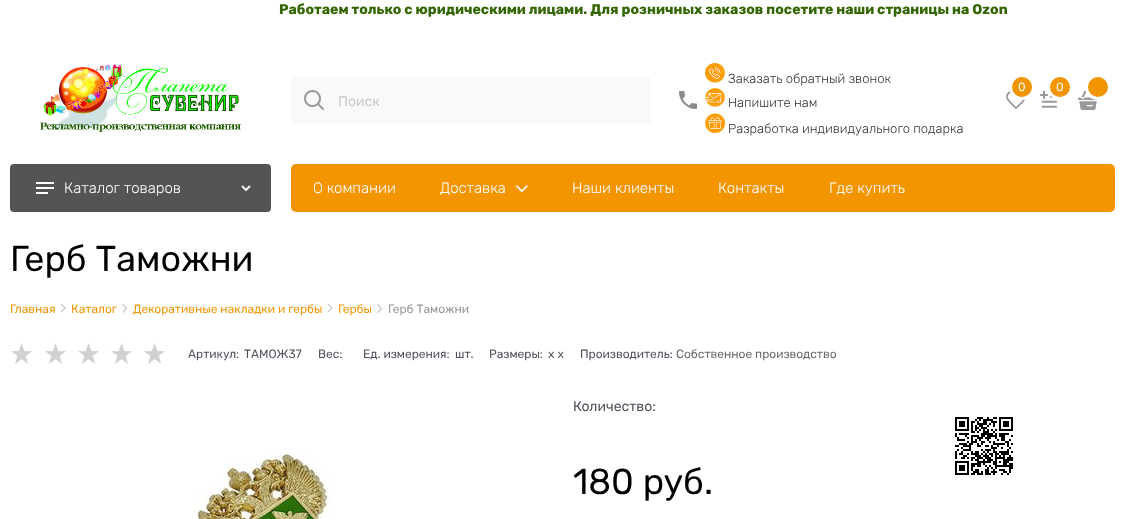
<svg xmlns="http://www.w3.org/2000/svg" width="1125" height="519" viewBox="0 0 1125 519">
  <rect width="100%" height="100%" fill="rgb(255,255,255)"/>
  <text x="279" y="14" font-family="Rubik" font-size="14" font-weight="bold" fill="rgb(51,102,0)">Работаем только с юридическими лицами. Для розничных заказов посетите наши страницы на Ozon</text>
  <image x="40" y="64" width="201" height="68" href="pic1.png"/>
  <rect x="291" y="77" width="360" height="47" rx="4" fill="rgb(249,249,249)"/>
  <image x="304" y="90" width="20" height="20" href="pic2.png"/>
  <text x="338" y="106" font-family="Rubik" font-size="14" fill="rgb(200,199,204)">Поиск</text>
  <image x="679" y="91" width="18" height="18" href="pic3.png"/>
  <image x="705" y="63" width="20" height="20" href="pic4.png"/>
  <text x="728" y="83" font-family="Rubik" font-size="13" font-weight="300" fill="rgb(51,51,51)">Заказать обратный звонок</text>
  <image x="705" y="88" width="20" height="19" href="pic5.png"/>
  <text x="728" y="107" font-family="Rubik" font-size="13" font-weight="300" fill="rgb(51,51,51)">Напишите нам</text>
  <image x="705" y="113" width="20" height="20" href="pic6.png"/>
  <text x="728" y="133" font-family="Rubik" font-size="13" font-weight="300" fill="rgb(51,51,51)">Разработка индивидуального подарка</text>
  <image x="1006" y="91" width="20" height="18" href="pic7.png"/>
  <circle cx="1022" cy="87" r="11.5" fill="rgb(243,149,0)" stroke="rgb(255,255,255)" stroke-width="3"/>
  <text x="1018" y="91" font-family="Rubik" font-size="12" fill="rgb(255,255,255)">0</text>
  <image x="1040" y="90" width="17" height="18" href="pic8.png"/>
  <circle cx="1060" cy="87" r="11.5" fill="rgb(243,149,0)" stroke="rgb(255,255,255)" stroke-width="3"/>
  <text x="1056" y="91" font-family="Rubik" font-size="12" fill="rgb(255,255,255)">0</text>
  <image x="1078" y="90" width="20" height="20" href="pic9.png"/>
  <circle cx="1098" cy="87" r="11.5" fill="rgb(243,149,0)" stroke="rgb(255,255,255)" stroke-width="3"/>
  <rect x="10" y="164" width="261" height="48" rx="4" fill="rgb(83,85,84)"/>
  <image x="36" y="182" width="18" height="12" href="pic10.png"/>
  <text x="64" y="193" font-family="Rubik" font-size="15" font-weight="300" fill="rgb(255,255,255)">Каталог товаров</text>
  <image x="241" y="185" width="10" height="7" href="pic11.png"/>
  <rect x="291" y="164" width="824" height="48" rx="5" fill="rgb(243,149,0)"/>
  <g font-family="Rubik" font-size="15" font-weight="300" fill="rgb(255,255,255)">
    <text x="313" y="193">О компании</text>
    <text x="440" y="193">Доставка</text>
  </g>
  <image x="516" y="185" width="12" height="7" href="pic12.png"/>
  <g font-family="Rubik" font-size="15" font-weight="300" fill="rgb(255,255,255)">
    <text x="572" y="193">Наши клиенты</text>
    <text x="718" y="193">Контакты</text>
    <text x="829" y="193">Где купить</text>
  </g>
  <text x="10" y="271" font-family="Rubik" font-size="36" fill="rgb(0,0,0)">Герб Таможни</text>
  <text x="10" y="313" font-family="Rubik" font-size="12" fill="rgb(243,149,0)">Главная</text>
  <image x="60" y="303" width="6" height="10" href="pic13.png"/>
  <text x="71" y="313" font-family="Rubik" font-size="12" fill="rgb(243,149,0)">Каталог</text>
  <image x="122" y="304" width="6" height="9" href="pic14.png"/>
  <text x="133" y="313" font-family="Rubik" font-size="12" fill="rgb(243,149,0)">Декоративные накладки и гербы</text>
  <image x="327" y="304" width="6" height="9" href="pic15.png"/>
  <text x="338" y="313" font-family="Rubik" font-size="12" fill="rgb(243,149,0)">Гербы</text>
  <image x="377" y="304" width="5" height="9" href="pic16.png"/>
  <text x="388" y="313" font-family="Rubik" font-size="12" fill="rgb(150,148,148)">Герб Таможни</text>
  <image x="11" y="343" width="21" height="21" href="pic17.png"/>
  <image x="45" y="343" width="21" height="21" href="pic17.png"/>
  <image x="78" y="343" width="21" height="21" href="pic17.png"/>
  <image x="111" y="343" width="21" height="21" href="pic17.png"/>
  <image x="144" y="343" width="21" height="21" href="pic17.png"/>
  <g font-family="Rubik" font-size="12" fill="rgb(75,79,88)">
    <text x="188" y="358">Артикул:</text>
    <text x="244" y="358">ТАМОЖ37</text>
    <text x="318" y="358">Вес:</text>
    <text x="363" y="358">Ед. измерения:</text>
    <text x="455" y="358">шт.</text>
    <text x="489" y="358">Размеры:</text>
    <text x="548" y="358">x x</text>
    <text x="580" y="358">Производитель:</text>
  </g>
  <text x="676" y="358" font-family="Rubik" font-size="12" fill="rgb(102,102,102)">Собственное производство</text>
  <image x="194" y="449" width="140" height="70" href="pic18.png"/>
  <text x="573" y="411" font-family="Rubik" font-size="14" fill="rgb(75,79,88)">Количество:</text>
  <text x="573" y="494" font-family="Rubik" font-size="36" fill="rgb(0,0,0)">180 руб.</text>
  <image x="955" y="417" width="58" height="58" href="pic19.png"/>
</svg>
